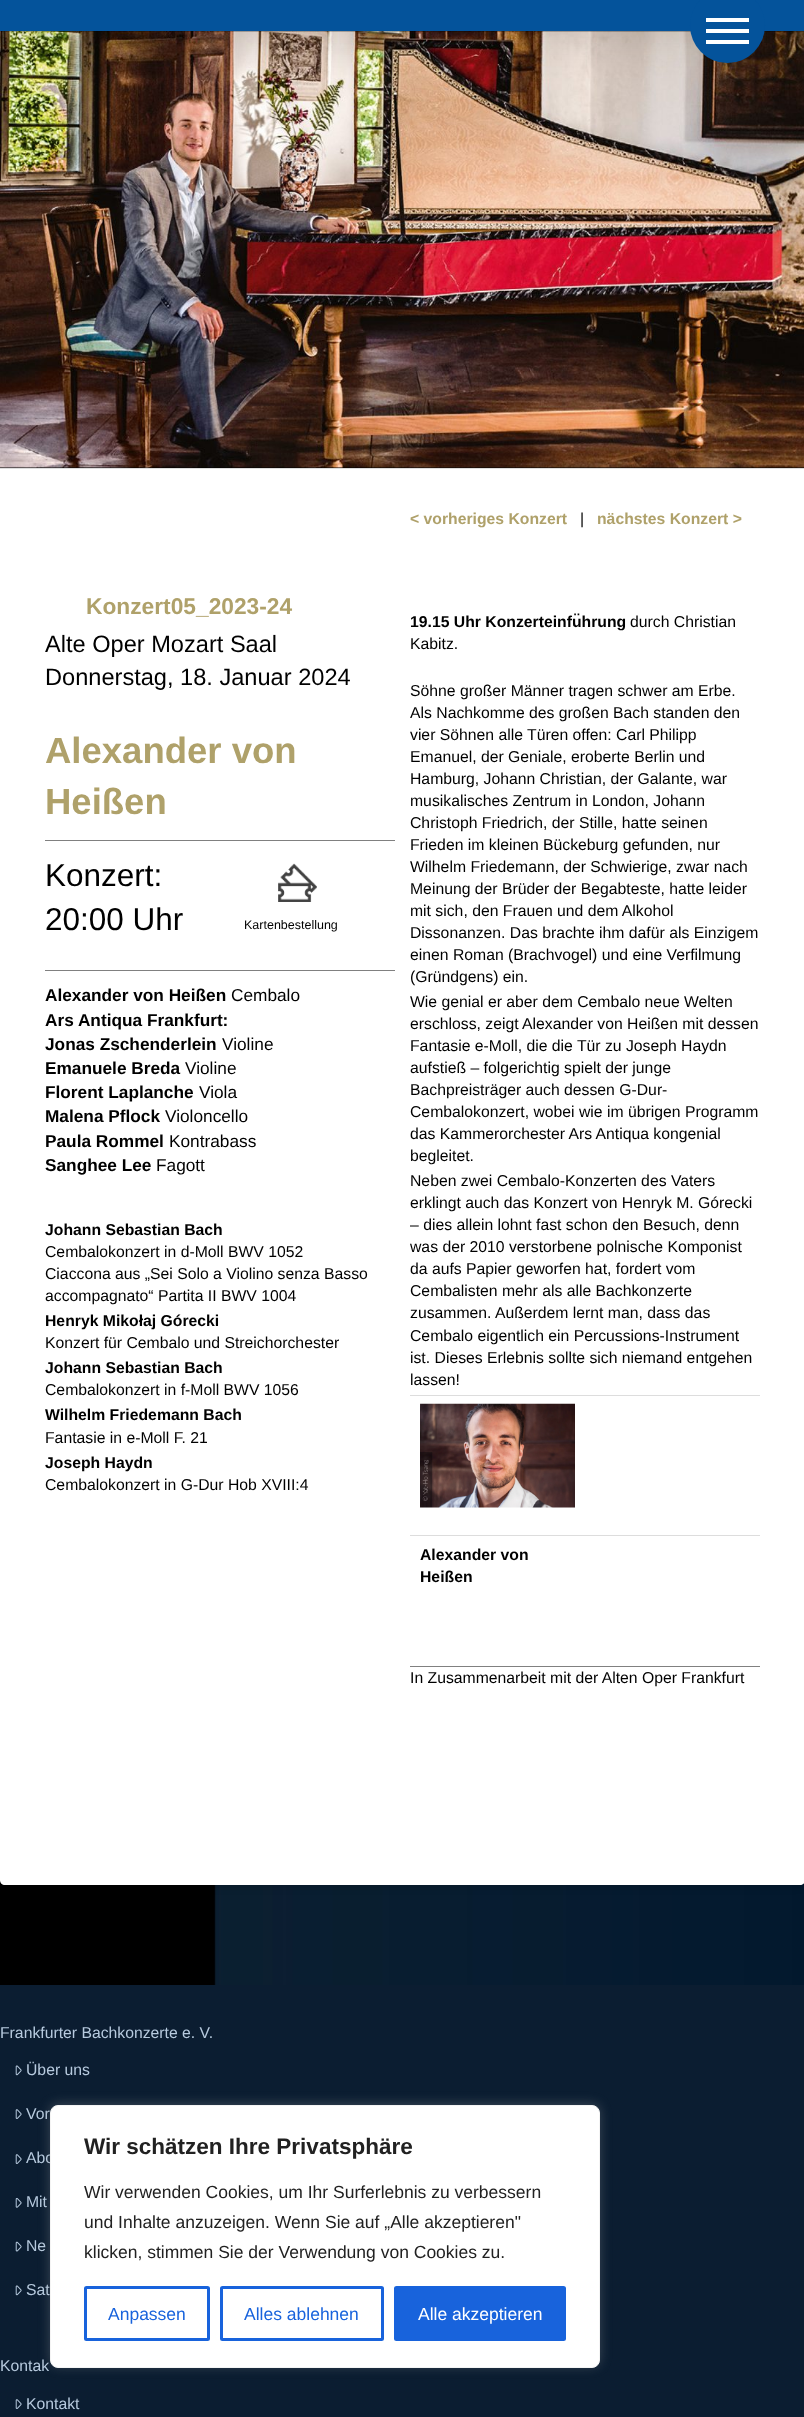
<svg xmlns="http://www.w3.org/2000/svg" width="804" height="2417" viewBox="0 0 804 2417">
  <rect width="100%" height="100%" fill="rgb(255,255,255)"/>
  <image x="0" y="1880" width="804" height="105" href="pic1.png"/>
  <rect x="0" y="471" width="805" height="1417" rx="5" fill="rgba(0,0,0,0.13)" filter="blur(3px)"/>
  <rect x="0" y="31" width="804" height="437" fill="rgb(0,0,0)"/>
  <image x="0" y="31" width="804" height="437" href="pic2.png"/>
  <rect x="0" y="3" width="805" height="31" fill="rgba(0,0,0,0.15)" filter="blur(20px)"/>
  <rect x="0" y="0" width="804" height="31" fill="rgb(4,83,155)"/>
  <circle cx="727.5" cy="25.5" r="37.5" fill="rgb(4,83,155)"/>
  <rect x="706" y="18" width="43" height="4" fill="rgb(255,255,255)"/>
  <rect x="706" y="29" width="43" height="4" fill="rgb(255,255,255)"/>
  <rect x="706" y="40" width="43" height="4" fill="rgb(255,255,255)"/>
  <rect x="0" y="468" width="804" height="1" fill="rgb(221,221,221)"/>
  <path d="M0 469H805V1880C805 1883 803 1885 800 1885H5C2 1885 0 1883 0 1880Z" fill="rgb(255,255,255)"/>
  <text x="410" y="524" font-family="Liberation Sans" font-size="15.75" font-weight="bold" fill="rgb(175,161,106)">&lt; vorheriges Konzert</text>
  <text x="580" y="524" font-family="Liberation Sans" font-size="15.75" fill="rgb(0,0,0)">|</text>
  <text x="597" y="524" font-family="Liberation Sans" font-size="15.75" font-weight="bold" fill="rgb(175,161,106)">nächstes Konzert &gt;</text>
  <text x="86" y="614" font-family="Liberation Sans" font-size="22.75" font-weight="bold" fill="rgb(175,161,106)">Konzert05_2023-24</text>
  <g font-family="Liberation Sans" font-size="23.6" fill="rgb(0,0,0)">
    <text>
      <tspan x="45" y="652">Alte Oper Mozart Saal</tspan>
      <tspan x="45" y="685">Donnerstag, 18. Januar 2024</tspan>
    </text>
  </g>
  <g font-family="Liberation Sans" font-size="36.5" font-weight="bold" fill="rgb(175,161,106)">
    <text>
      <tspan x="45" y="763">Alexander von</tspan>
      <tspan x="45" y="814">Heißen</tspan>
    </text>
  </g>
  <rect x="45" y="840" width="350" height="1" fill="rgb(128,128,128)"/>
  <g font-family="Liberation Sans" font-size="31.5" fill="rgb(0,0,0)">
    <text>
      <tspan x="45" y="886">Konzert:</tspan>
      <tspan x="45" y="930">20:00 Uhr</tspan>
    </text>
  </g>
  <image x="278" y="863" width="39" height="39" href="pic3.png"/>
  <text x="244" y="929" font-family="Liberation Sans" font-size="12.5" fill="rgb(0,0,0)">Kartenbestellung</text>
  <rect x="45" y="970" width="350" height="1" fill="rgb(128,128,128)"/>
  <text x="45" y="1001" font-family="Liberation Sans" font-size="17.25" font-weight="bold" fill="rgb(0,0,0)">Alexander von Heißen</text>
  <text x="231" y="1001" font-family="Liberation Sans" font-size="17.25" fill="rgb(0,0,0)">Cembalo</text>
  <g font-family="Liberation Sans" font-size="17.25" font-weight="bold" fill="rgb(0,0,0)">
    <text>
      <tspan x="45" y="1026">Ars Antiqua Frankfurt:</tspan>
      <tspan x="45" y="1050">Jonas Zschenderlein</tspan>
    </text>
  </g>
  <text x="222" y="1050" font-family="Liberation Sans" font-size="17.25" fill="rgb(0,0,0)">Violine</text>
  <text x="45" y="1074" font-family="Liberation Sans" font-size="17.25" font-weight="bold" fill="rgb(0,0,0)">Emanuele Breda</text>
  <text x="185" y="1074" font-family="Liberation Sans" font-size="17.25" fill="rgb(0,0,0)">Violine</text>
  <text x="45" y="1098" font-family="Liberation Sans" font-size="17.25" font-weight="bold" fill="rgb(0,0,0)">Florent Laplanche</text>
  <text x="199" y="1098" font-family="Liberation Sans" font-size="17.25" fill="rgb(0,0,0)">Viola</text>
  <text x="45" y="1122" font-family="Liberation Sans" font-size="17.25" font-weight="bold" fill="rgb(0,0,0)">Malena Pflock</text>
  <text x="165" y="1122" font-family="Liberation Sans" font-size="17.25" fill="rgb(0,0,0)">Violoncello</text>
  <text x="45" y="1147" font-family="Liberation Sans" font-size="17.25" font-weight="bold" fill="rgb(0,0,0)">Paula Rommel</text>
  <text x="169" y="1147" font-family="Liberation Sans" font-size="17.25" fill="rgb(0,0,0)">Kontrabass</text>
  <text x="45" y="1171" font-family="Liberation Sans" font-size="17.25" font-weight="bold" fill="rgb(0,0,0)">Sanghee Lee</text>
  <text x="156" y="1171" font-family="Liberation Sans" font-size="17.25" fill="rgb(0,0,0)">Fagott</text>
  <text x="45" y="1235" font-family="Liberation Sans" font-size="15.75" font-weight="bold" fill="rgb(0,0,0)">Johann Sebastian Bach</text>
  <g font-family="Liberation Sans" font-size="15.75" fill="rgb(0,0,0)">
    <text>
      <tspan x="45" y="1257">Cembalokonzert in d-Moll BWV 1052</tspan>
      <tspan x="45" y="1279">Ciaccona aus „Sei Solo a Violino senza Basso</tspan>
      <tspan x="45" y="1301">accompagnato“ Partita II BWV 1004</tspan>
    </text>
  </g>
  <text x="45" y="1326" font-family="Liberation Sans" font-size="15.75" font-weight="bold" fill="rgb(0,0,0)">Henryk Mikołaj Górecki</text>
  <text x="45" y="1348" font-family="Liberation Sans" font-size="15.75" fill="rgb(0,0,0)">Konzert für Cembalo und Streichorchester</text>
  <text x="45" y="1373" font-family="Liberation Sans" font-size="15.75" font-weight="bold" fill="rgb(0,0,0)">Johann Sebastian Bach</text>
  <text x="45" y="1395" font-family="Liberation Sans" font-size="15.75" fill="rgb(0,0,0)">Cembalokonzert in f-Moll BWV 1056</text>
  <text x="45" y="1420" font-family="Liberation Sans" font-size="15.75" font-weight="bold" fill="rgb(0,0,0)">Wilhelm Friedemann Bach</text>
  <text x="45" y="1443" font-family="Liberation Sans" font-size="15.75" fill="rgb(0,0,0)">Fantasie in e-Moll F. 21</text>
  <text x="45" y="1468" font-family="Liberation Sans" font-size="15.75" font-weight="bold" fill="rgb(0,0,0)">Joseph Haydn</text>
  <text x="45" y="1490" font-family="Liberation Sans" font-size="15.75" fill="rgb(0,0,0)">Cembalokonzert in G-Dur Hob XVIII:4</text>
  <text x="410" y="627" font-family="Liberation Sans" font-size="15.75" font-weight="bold" fill="rgb(0,0,0)">19.15 Uhr Konzerteinführung</text>
  <g font-family="Liberation Sans" font-size="15.75" fill="rgb(0,0,0)">
    <text x="630" y="627">durch Christian</text>
    <text x="410" y="649">Kabitz.</text>
    <text>
      <tspan x="410" y="696">Söhne großer Männer tragen schwer am Erbe.</tspan>
      <tspan x="410" y="718">Als Nachkomme des großen Bach standen den</tspan>
      <tspan x="410" y="740">vier Söhnen alle Türen offen: Carl Philipp</tspan>
      <tspan x="410" y="762">Emanuel, der Geniale, eroberte Berlin und</tspan>
      <tspan x="410" y="784">Hamburg, Johann Christian, der Galante, war</tspan>
      <tspan x="410" y="806">musikalisches Zentrum in London, Johann</tspan>
      <tspan x="410" y="828">Christoph Friedrich, der Stille, hatte seinen</tspan>
      <tspan x="410" y="850">Frieden im kleinen Bückeburg gefunden, nur</tspan>
      <tspan x="410" y="872">Wilhelm Friedemann, der Schwierige, zwar nach</tspan>
      <tspan x="410" y="894">Meinung der Brüder der Begabteste, hatte leider</tspan>
      <tspan x="410" y="916">mit sich, den Frauen und dem Alkohol</tspan>
      <tspan x="410" y="938">Dissonanzen. Das brachte ihm dafür als Einzigem</tspan>
      <tspan x="410" y="960">einen Roman (Brachvogel) und eine Verfilmung</tspan>
      <tspan x="410" y="982">(Gründgens) ein.</tspan>
      <tspan x="410" y="1007">Wie genial er aber dem Cembalo neue Welten</tspan>
      <tspan x="410" y="1029">erschloss, zeigt Alexander von Heißen mit dessen</tspan>
      <tspan x="410" y="1051">Fantasie e-Moll, die die Tür zu Joseph Haydn</tspan>
      <tspan x="410" y="1073">aufstieß – folgerichtig spielt der junge</tspan>
      <tspan x="410" y="1095">Bachpreisträger auch dessen G-Dur-</tspan>
      <tspan x="410" y="1117">Cembalokonzert, wobei wie im übrigen Programm</tspan>
      <tspan x="410" y="1139">das Kammerorchester Ars Antiqua kongenial</tspan>
      <tspan x="410" y="1161">begleitet.</tspan>
      <tspan x="410" y="1186">Neben zwei Cembalo-Konzerten des Vaters</tspan>
      <tspan x="410" y="1208">erklingt auch das Konzert von Henryk M. Górecki</tspan>
      <tspan x="410" y="1230">– dies allein lohnt fast schon den Besuch, denn</tspan>
      <tspan x="410" y="1252">was der 2010 verstorbene polnische Komponist</tspan>
      <tspan x="410" y="1274">da aufs Papier geworfen hat, fordert vom</tspan>
      <tspan x="410" y="1296">Cembalisten mehr als alle Bachkonzerte</tspan>
      <tspan x="410" y="1318">zusammen. Außerdem lernt man, dass das</tspan>
      <tspan x="410" y="1341">Cembalo eigentlich ein Percussions-Instrument</tspan>
      <tspan x="410" y="1363">ist. Dieses Erlebnis sollte sich niemand entgehen</tspan>
      <tspan x="410" y="1385">lassen!</tspan>
    </text>
  </g>
  <rect x="410" y="1395" width="350" height="1" fill="rgb(221,221,221)"/>
  <image x="420" y="1403" width="155" height="105" href="pic4.png"/>
  <rect x="410" y="1535" width="350" height="1" fill="rgb(221,221,221)"/>
  <g font-family="Liberation Sans" font-size="15.75" font-weight="bold" fill="rgb(0,0,0)">
    <text>
      <tspan x="420" y="1560">Alexander von</tspan>
      <tspan x="420" y="1582">Heißen</tspan>
    </text>
  </g>
  <rect x="410" y="1666" width="350" height="1" fill="rgb(128,128,128)"/>
  <text x="410" y="1683" font-family="Liberation Sans" font-size="15.75" fill="rgb(0,0,0)">In Zusammenarbeit mit der Alten Oper Frankfurt</text>
  <rect x="0" y="1985" width="804" height="432" fill="rgb(11,29,49)"/>
  <text x="0" y="2038" font-family="Liberation Sans" font-size="15.75" fill="rgb(183,202,222)">Frankfurter Bachkonzerte e. V.</text>
  <image x="15" y="2065" width="7" height="11" href="pic5.png"/>
  <text x="26" y="2075" font-family="Liberation Sans" font-size="15.75" fill="rgb(183,202,222)">Über uns</text>
  <image x="15" y="2109" width="7" height="10" href="pic6.png"/>
  <text x="26" y="2119" font-family="Liberation Sans" font-size="15.75" fill="rgb(183,202,222)">Vor</text>
  <image x="15" y="2154" width="7" height="10" href="pic6.png"/>
  <text x="26" y="2163" font-family="Liberation Sans" font-size="15.75" fill="rgb(183,202,222)">Abo</text>
  <image x="15" y="2198" width="7" height="10" href="pic7.png"/>
  <text x="26" y="2207" font-family="Liberation Sans" font-size="15.75" fill="rgb(183,202,222)">Mit</text>
  <image x="15" y="2241" width="7" height="11" href="pic8.png"/>
  <text x="26" y="2251" font-family="Liberation Sans" font-size="15.75" fill="rgb(183,202,222)">Ne</text>
  <image x="15" y="2285" width="7" height="11" href="pic5.png"/>
  <g font-family="Liberation Sans" font-size="15.75" fill="rgb(183,202,222)">
    <text x="26" y="2295">Sat</text>
    <text x="0" y="2371">Kontak</text>
  </g>
  <image x="15" y="2399" width="7" height="10" href="pic6.png"/>
  <text x="26" y="2409" font-family="Liberation Sans" font-size="15.75" fill="rgb(183,202,222)">Kontakt</text>
  <rect x="50" y="2104" width="550" height="262" rx="8" fill="rgba(172,171,171,0.3)" filter="blur(6px)"/>
  <rect x="50.5" y="2105.5" width="549" height="262" rx="7.5" fill="rgb(255,255,255)" stroke="rgb(244,244,244)"/>
  <text x="84" y="2154" font-family="Liberation Sans" font-size="22.5" font-weight="bold" fill="rgb(33,33,33)">Wir schätzen Ihre Privatsphäre</text>
  <g font-family="Liberation Sans" font-size="17.5" fill="rgb(33,33,33)">
    <text>
      <tspan x="84" y="2198">Wir verwenden Cookies, um Ihr Surferlebnis zu verbessern</tspan>
      <tspan x="84" y="2228">und Inhalte anzuzeigen. Wenn Sie auf „Alle akzeptieren"</tspan>
      <tspan x="84" y="2258">klicken, stimmen Sie der Verwendung von Cookies zu.</tspan>
    </text>
  </g>
  <rect x="85.5" y="2287.5" width="123" height="52" rx="1" fill="none" stroke="rgb(24,99,220)" stroke-width="3"/>
  <text x="108" y="2320" font-family="Liberation Sans" font-size="17.5" fill="rgb(24,99,220)">Anpassen</text>
  <rect x="221.5" y="2287.5" width="161" height="52" rx="1" fill="none" stroke="rgb(24,99,220)" stroke-width="3"/>
  <text x="244" y="2320" font-family="Liberation Sans" font-size="17.5" fill="rgb(24,99,220)">Alles ablehnen</text>
  <rect x="395.5" y="2287.5" width="169" height="52" rx="1" fill="rgb(24,99,220)" stroke="rgb(24,99,220)" stroke-width="3"/>
  <text x="418" y="2320" font-family="Liberation Sans" font-size="17.5" fill="rgb(255,255,255)">Alle akzeptieren</text>
</svg>
